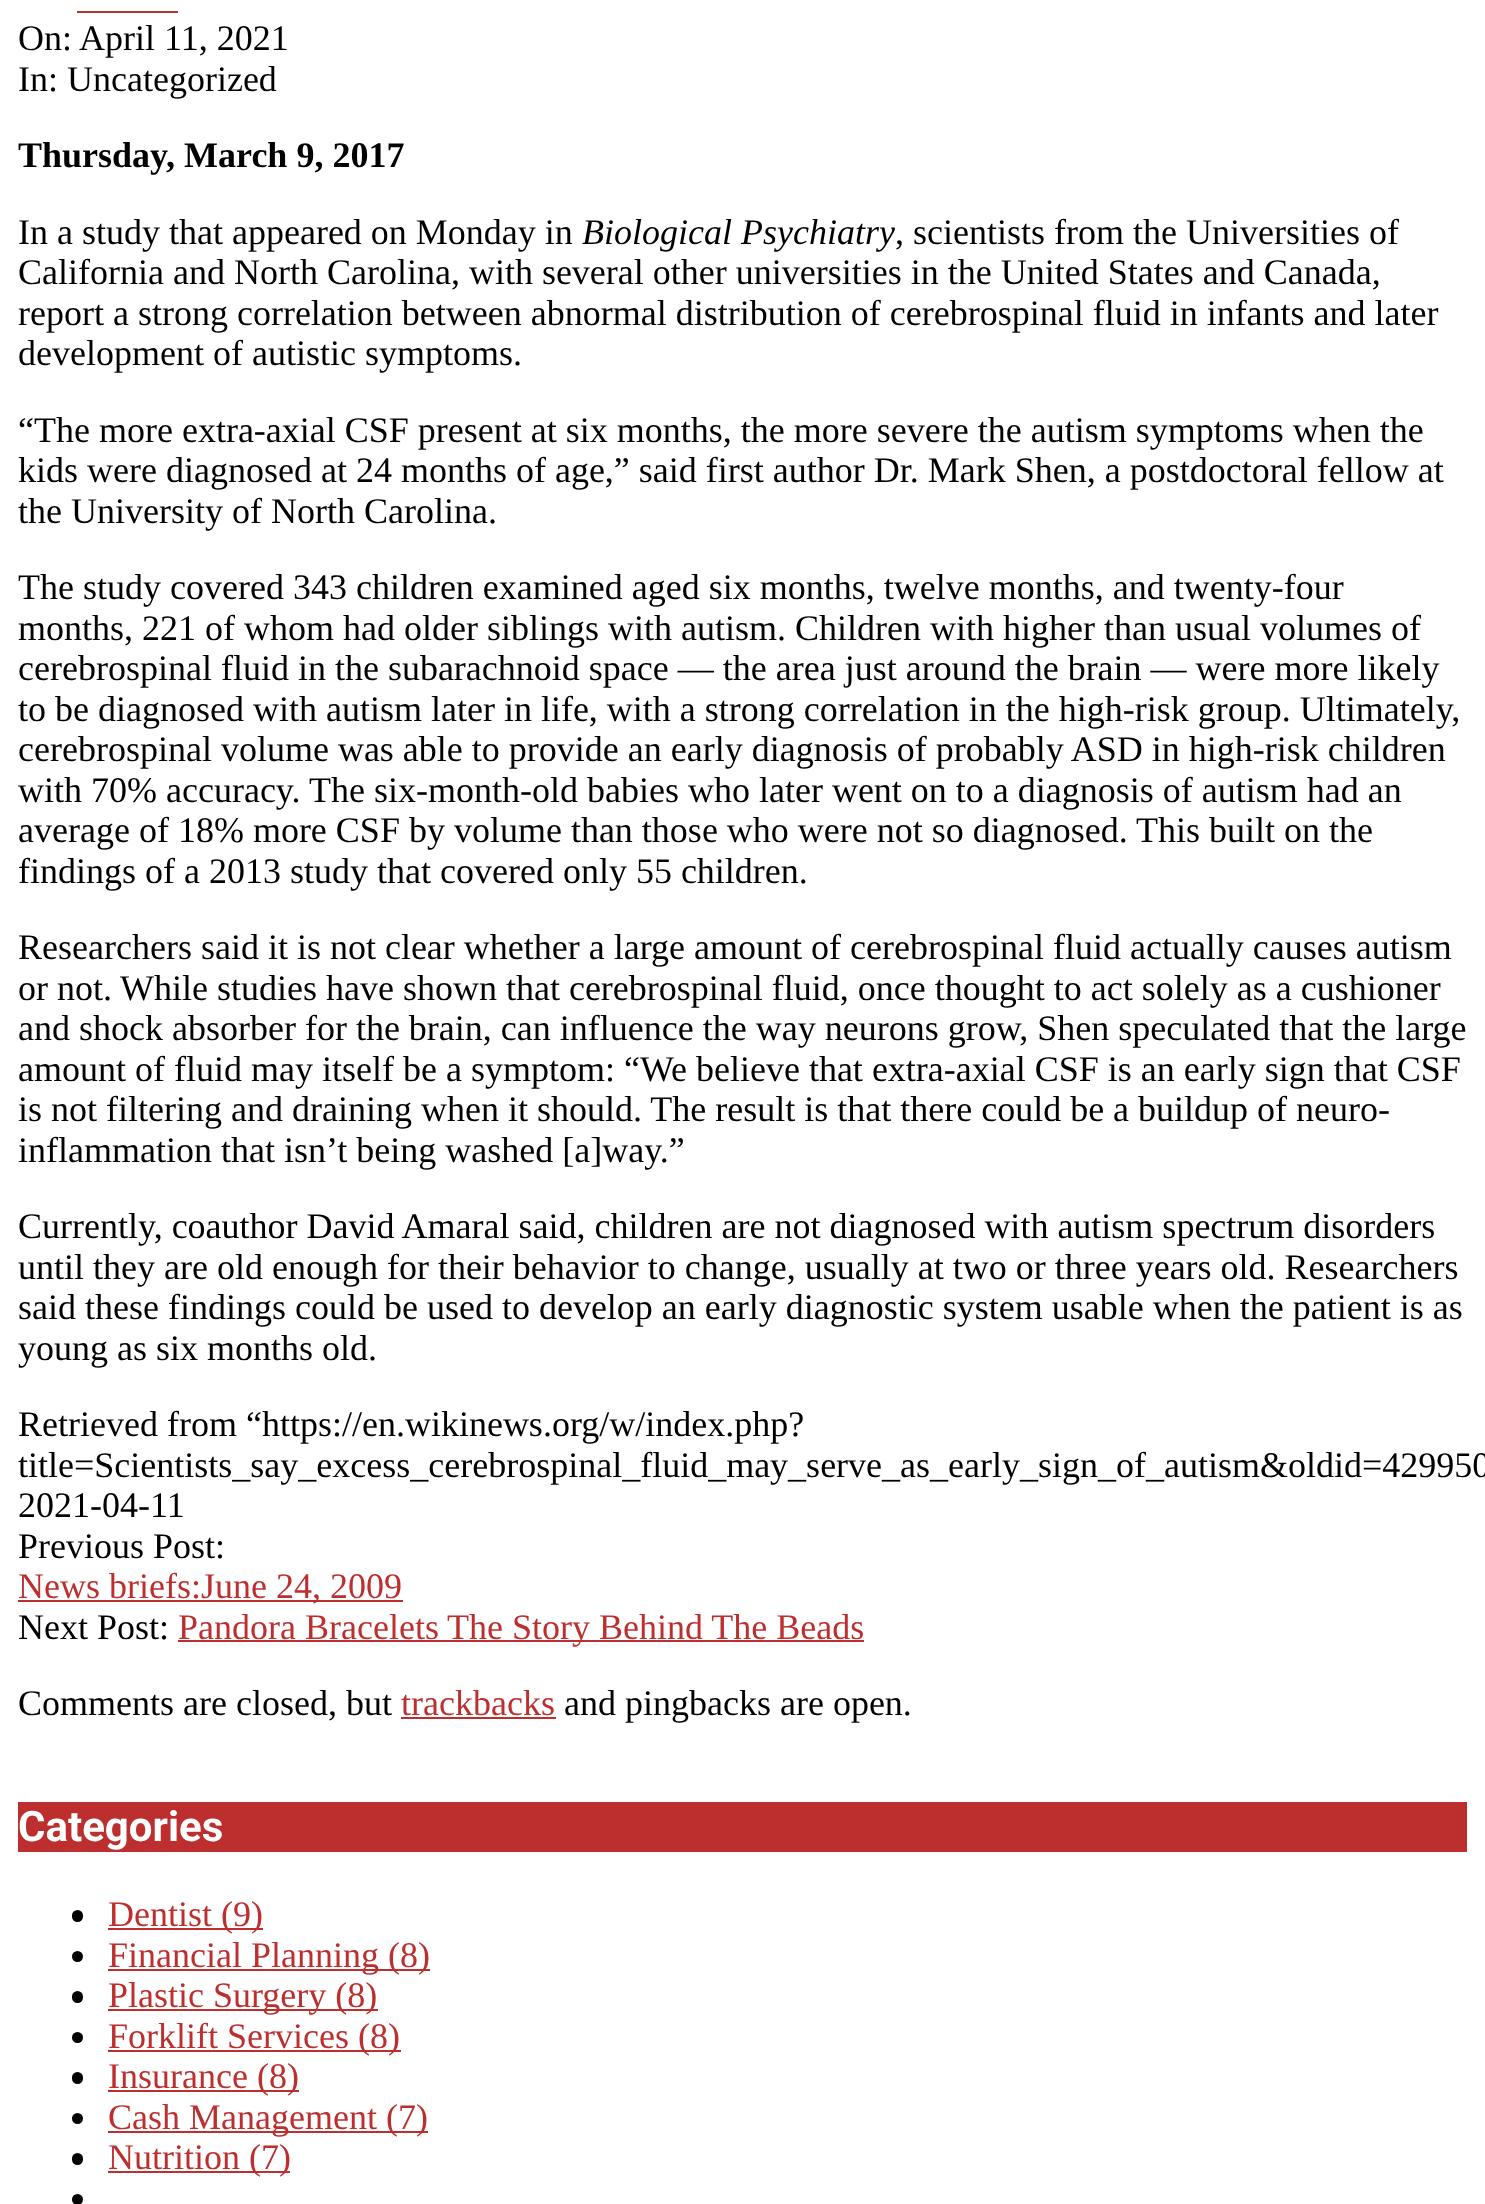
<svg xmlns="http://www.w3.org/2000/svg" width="1485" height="2204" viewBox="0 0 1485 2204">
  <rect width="100%" height="100%" fill="rgb(255,255,255)"/>
  <rect x="77" y="11" width="101" height="2" fill="rgb(189,46,46)"/>
  <g font-family="Liberation Serif" font-size="36" fill="rgb(0,0,0)">
    <text x="18" y="50">On:</text>
    <text x="79" y="50">April 11, 2021</text>
    <text x="18" y="91">In: Uncategorized</text>
  </g>
  <text x="18" y="167" font-family="Liberation Serif" font-size="36" font-weight="bold" fill="rgb(0,0,0)">Thursday, March 9, 2017</text>
  <text x="18" y="244" font-family="Liberation Serif" font-size="36" fill="rgb(0,0,0)">In a study that appeared on Monday in</text>
  <text x="582" y="244" font-family="Liberation Serif" font-size="36" font-style="italic" fill="rgb(0,0,0)">Biological Psychiatry</text>
  <g font-family="Liberation Serif" font-size="36" fill="rgb(0,0,0)">
    <text x="895" y="244">, scientists from the Universities of</text>
    <text>
      <tspan x="18" y="284">California and North Carolina, with several other universities in the United States and Canada,</tspan>
      <tspan x="18" y="325">report a strong correlation between abnormal distribution of cerebrospinal fluid in infants and later</tspan>
      <tspan x="18" y="365">development of autistic symptoms.</tspan>
    </text>
    <text>
      <tspan x="18" y="442">“The more extra-axial CSF present at six months, the more severe the autism symptoms when the</tspan>
      <tspan x="18" y="482">kids were diagnosed at 24 months of age,” said first author Dr. Mark Shen, a postdoctoral fellow at</tspan>
      <tspan x="18" y="523">the University of North Carolina.</tspan>
    </text>
    <text>
      <tspan x="18" y="599">The study covered 343 children examined aged six months, twelve months, and twenty-four</tspan>
      <tspan x="18" y="640">months, 221 of whom had older siblings with autism. Children with higher than usual volumes of</tspan>
      <tspan x="18" y="680">cerebrospinal fluid in the subarachnoid space — the area just around the brain — were more likely</tspan>
      <tspan x="18" y="721">to be diagnosed with autism later in life, with a strong correlation in the high-risk group. Ultimately,</tspan>
      <tspan x="18" y="761">cerebrospinal volume was able to provide an early diagnosis of probably ASD in high-risk children</tspan>
      <tspan x="18" y="802">with 70% accuracy.</tspan>
    </text>
    <text x="309" y="802">The six-month-old babies who later went on to a diagnosis of autism had an</text>
    <text x="18" y="842">average of 18% more CSF by volume than those who were not so diagnosed.</text>
    <text x="1136" y="842">This built on the</text>
    <text x="18" y="883">findings of a 2013 study that covered only 55 children.</text>
    <text>
      <tspan x="18" y="959">Researchers said it is not clear whether a large amount of cerebrospinal fluid actually causes autism</tspan>
      <tspan x="18" y="1000">or not.</tspan>
    </text>
    <text x="120" y="1000">While studies have shown that cerebrospinal fluid, once thought to act solely as a cushioner</text>
    <text>
      <tspan x="18" y="1040">and shock absorber for the brain, can influence the way neurons grow, Shen speculated that the large</tspan>
      <tspan x="18" y="1081">amount of fluid may itself be a symptom: “We believe that extra-axial CSF is an early sign that CSF</tspan>
      <tspan x="18" y="1121">is not filtering and draining when it should. The result is that there could be a buildup of neuro-</tspan>
      <tspan x="18" y="1162">inflammation that isn’t being washed [a]way.”</tspan>
    </text>
    <text>
      <tspan x="18" y="1238">Currently, coauthor David Amaral said, children are not diagnosed with autism spectrum disorders</tspan>
      <tspan x="18" y="1279">until they are old enough for their behavior to change, usually at two or three years old. Researchers</tspan>
      <tspan x="18" y="1319">said these findings could be used to develop an early diagnostic system usable when the patient is as</tspan>
      <tspan x="18" y="1360">young as six months old.</tspan>
    </text>
    <text>
      <tspan x="18" y="1436">Retrieved from “https://en.wikinews.org/w/index.php?</tspan>
      <tspan x="18" y="1477">title=Scientists_say_excess_cerebrospinal_fluid_may_serve_as_early_sign_of_autism&amp;oldid=429950</tspan>
      <tspan x="18" y="1517">2021-04-11</tspan>
      <tspan x="18" y="1558">Previous Post:</tspan>
    </text>
  </g>
  <rect x="18" y="1600" width="385" height="2" fill="rgb(189,46,46)"/>
  <text x="18" y="1598" font-family="Liberation Serif" font-size="36" fill="rgb(189,46,46)">News briefs:June 24, 2009</text>
  <text x="18" y="1639" font-family="Liberation Serif" font-size="36" fill="rgb(0,0,0)">Next Post:</text>
  <text x="178" y="1639" font-family="Liberation Serif" font-size="36" fill="rgb(189,46,46)">Pandora Bracelets</text>
  <rect x="178" y="1640" width="686" height="2" fill="rgb(189,46,46)"/>
  <text x="447" y="1639" font-family="Liberation Serif" font-size="36" fill="rgb(189,46,46)">The Story Behind The Beads</text>
  <text x="18" y="1715" font-family="Liberation Serif" font-size="36" fill="rgb(0,0,0)">Comments are closed, but</text>
  <text x="401" y="1715" font-family="Liberation Serif" font-size="36" fill="rgb(189,46,46)">trackbacks</text>
  <rect x="401" y="1717" width="155" height="2" fill="rgb(189,46,46)"/>
  <text x="564" y="1715" font-family="Liberation Serif" font-size="36" fill="rgb(0,0,0)">and pingbacks are open.</text>
  <rect x="18" y="1802" width="1449" height="50" fill="rgb(189,46,46)"/>
  <text x="18" y="1841" font-family="Roboto" font-size="42" font-weight="bold" fill="rgb(255,255,255)">Categories</text>
  <rect x="72" y="1910" width="11" height="12" rx="5.5" fill="rgb(0,0,0)"/>
  <rect x="108" y="1928" width="155" height="2" fill="rgb(189,46,46)"/>
  <text x="108" y="1926" font-family="Liberation Serif" font-size="36" fill="rgb(189,46,46)">Dentist (9)</text>
  <circle cx="77.5" cy="1956.5" r="5.5" fill="rgb(0,0,0)"/>
  <rect x="108" y="1969" width="322" height="2" fill="rgb(189,46,46)"/>
  <text x="108" y="1967" font-family="Liberation Serif" font-size="36" fill="rgb(189,46,46)">Financial Planning (8)</text>
  <rect x="72" y="1991" width="11" height="12" rx="5.5" fill="rgb(0,0,0)"/>
  <rect x="108" y="2009" width="270" height="2" fill="rgb(189,46,46)"/>
  <text x="108" y="2007" font-family="Liberation Serif" font-size="36" fill="rgb(189,46,46)">Plastic Surgery (8)</text>
  <circle cx="77.5" cy="2037.5" r="5.5" fill="rgb(0,0,0)"/>
  <rect x="108" y="2050" width="293" height="2" fill="rgb(189,46,46)"/>
  <text x="108" y="2048" font-family="Liberation Serif" font-size="36" fill="rgb(189,46,46)">Forklift Services (8)</text>
  <rect x="72" y="2072" width="11" height="12" rx="5.5" fill="rgb(0,0,0)"/>
  <rect x="108" y="2090" width="191" height="2" fill="rgb(189,46,46)"/>
  <text x="108" y="2088" font-family="Liberation Serif" font-size="36" fill="rgb(189,46,46)">Insurance (8)</text>
  <circle cx="77.5" cy="2118.5" r="5.5" fill="rgb(0,0,0)"/>
  <rect x="108" y="2131" width="320" height="2" fill="rgb(189,46,46)"/>
  <text x="108" y="2129" font-family="Liberation Serif" font-size="36" fill="rgb(189,46,46)">Cash Management (7)</text>
  <rect x="72" y="2153" width="11" height="12" rx="5.5" fill="rgb(0,0,0)"/>
  <rect x="108" y="2171" width="182" height="2" fill="rgb(189,46,46)"/>
  <text x="108" y="2169" font-family="Liberation Serif" font-size="36" fill="rgb(189,46,46)">Nutrition (7)</text>
  <circle cx="77.5" cy="2199.5" r="5.5" fill="rgb(0,0,0)"/>
</svg>
